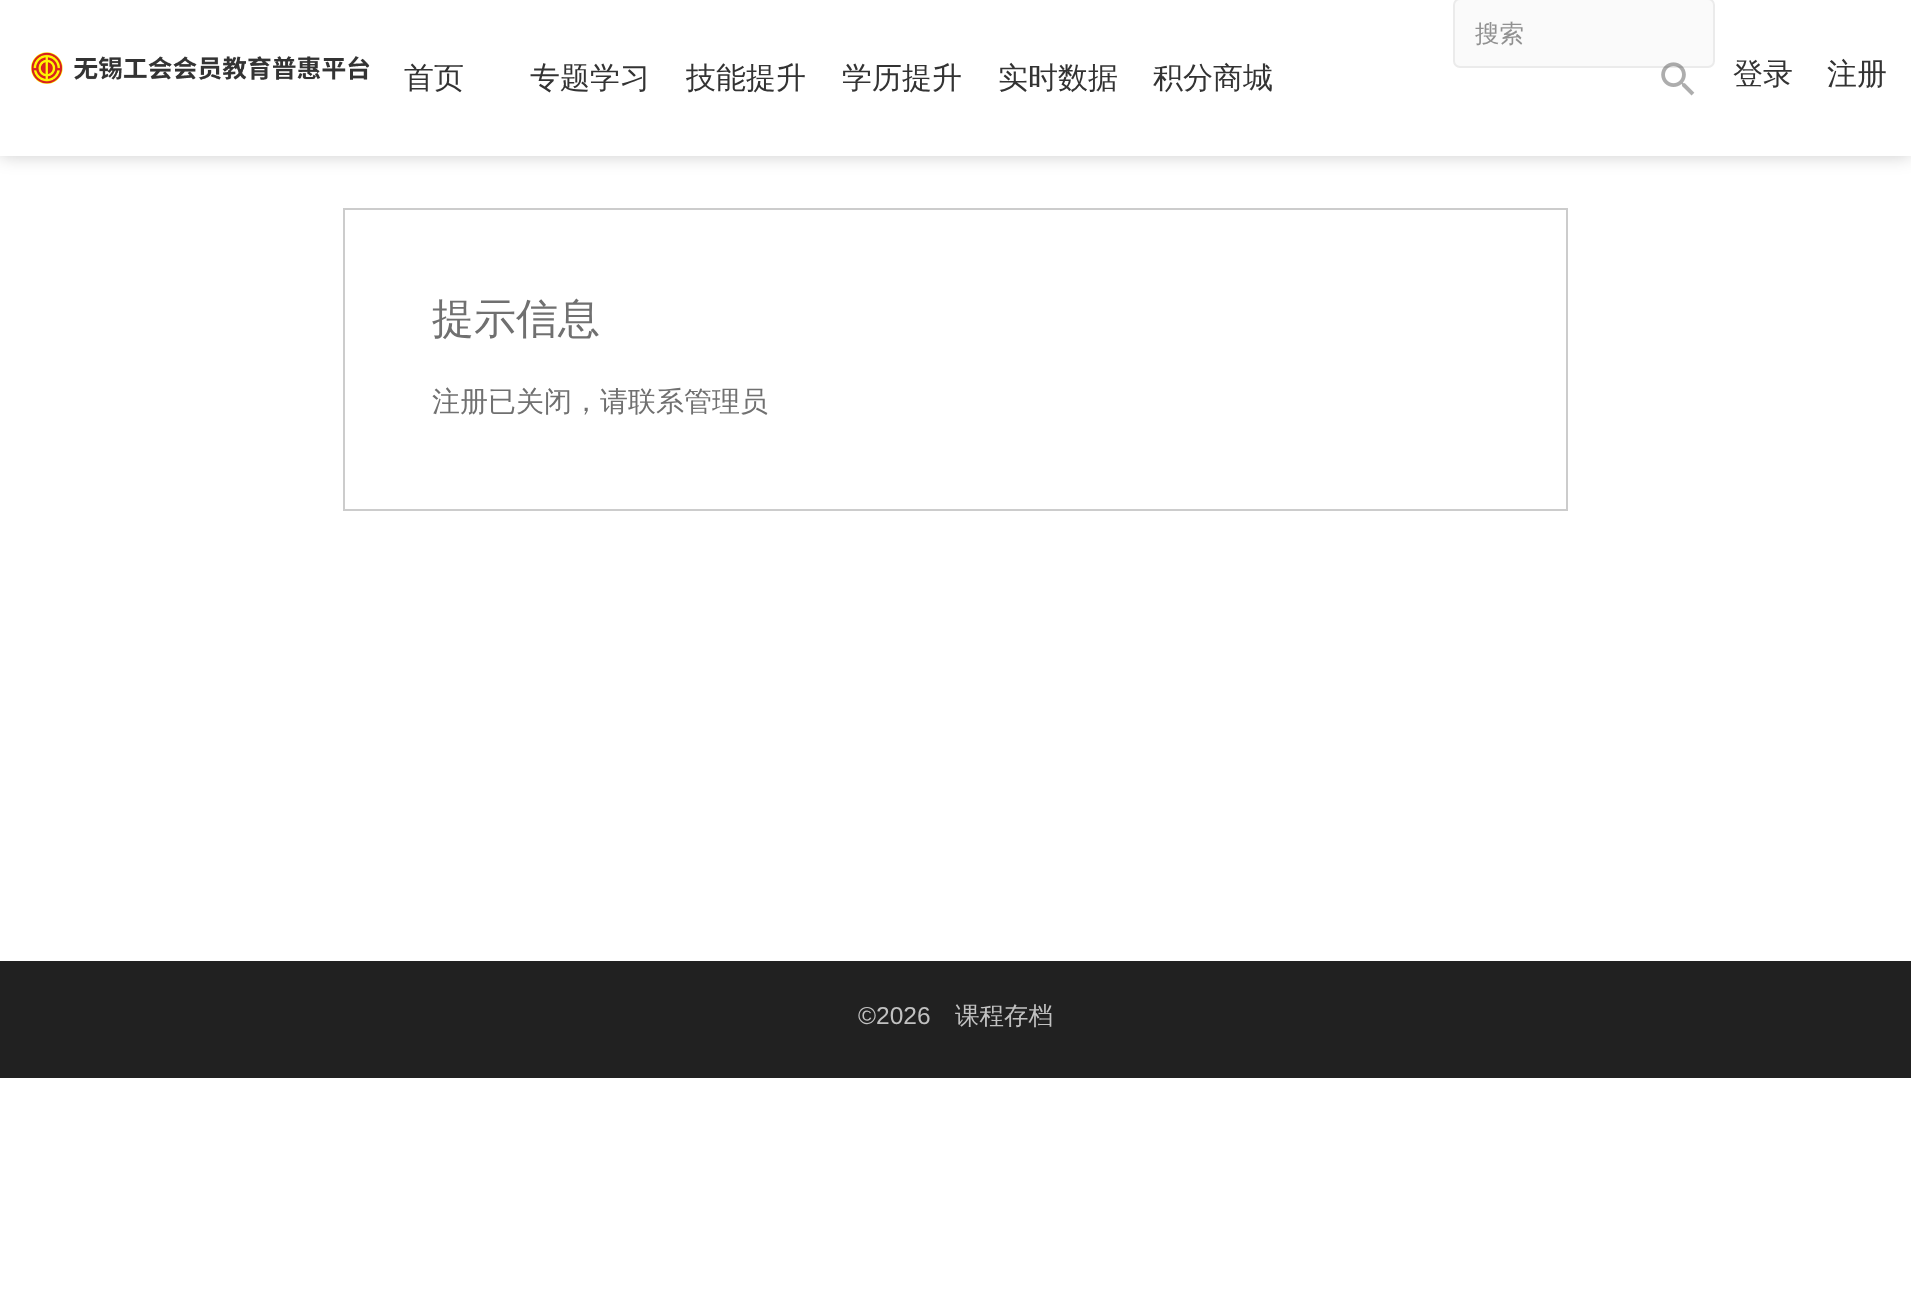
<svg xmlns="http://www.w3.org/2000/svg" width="1911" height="1305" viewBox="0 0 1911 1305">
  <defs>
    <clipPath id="clip1"><path d="M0 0H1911V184H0ZM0 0H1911V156H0Z" clip-rule="evenodd"/></clipPath>
  </defs>
  <rect width="100%" height="100%" fill="rgb(255,255,255)"/>
  <g clip-path="url(#clip1)">
    <rect x="0" y="0" width="1911" height="156" fill="rgba(0,0,0,0.2)" filter="blur(9px)"/>
  </g>
  <image x="31" y="52" width="339" height="32" href="pic1.png"/>
  <g font-family="WenQuanYi Zen Hei" font-size="30" font-weight="500" fill="rgb(51,51,51)">
    <text x="404" y="88">首页</text>
    <text x="530" y="88">专题学习</text>
    <text x="686" y="88">技能提升</text>
    <text x="842" y="88">学历提升</text>
    <text x="998" y="88">实时数据</text>
    <text x="1153" y="88">积分商城</text>
  </g>
  <rect x="1454" y="-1" width="260" height="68" rx="6" fill="rgb(250,250,250)" stroke="rgb(235,235,235)" stroke-width="2"/>
  <text x="1475" y="42" font-family="WenQuanYi Zen Hei" font-size="24.5" font-weight="500" fill="rgb(145,145,145)">搜索</text>
  <image x="1661" y="62" width="34" height="34" href="pic2.png"/>
  <g font-family="WenQuanYi Zen Hei" font-size="30" font-weight="500" fill="rgb(51,51,51)">
    <text x="1733" y="84">登录</text>
    <text x="1827" y="84">注册</text>
  </g>
  <rect x="344" y="209" width="1223" height="301" fill="none" stroke="rgb(204,204,204)" stroke-width="2"/>
  <text x="432" y="333" font-family="WenQuanYi Zen Hei" font-size="42" font-weight="500" fill="rgb(112,112,112)">提示信息</text>
  <text x="432" y="411" font-family="WenQuanYi Zen Hei" font-size="28" font-weight="500" fill="rgb(112,112,112)">注册已关闭，请联系管理员</text>
  <rect x="0" y="961" width="1911" height="117" fill="rgb(33,33,33)"/>
  <text x="858" y="1024" font-family="Liberation Sans" font-size="24.5" fill="rgb(193,193,193)">©2026</text>
  <text x="955" y="1024" font-family="WenQuanYi Zen Hei" font-size="24.5" font-weight="500" fill="rgb(193,193,193)">课程存档</text>
</svg>
